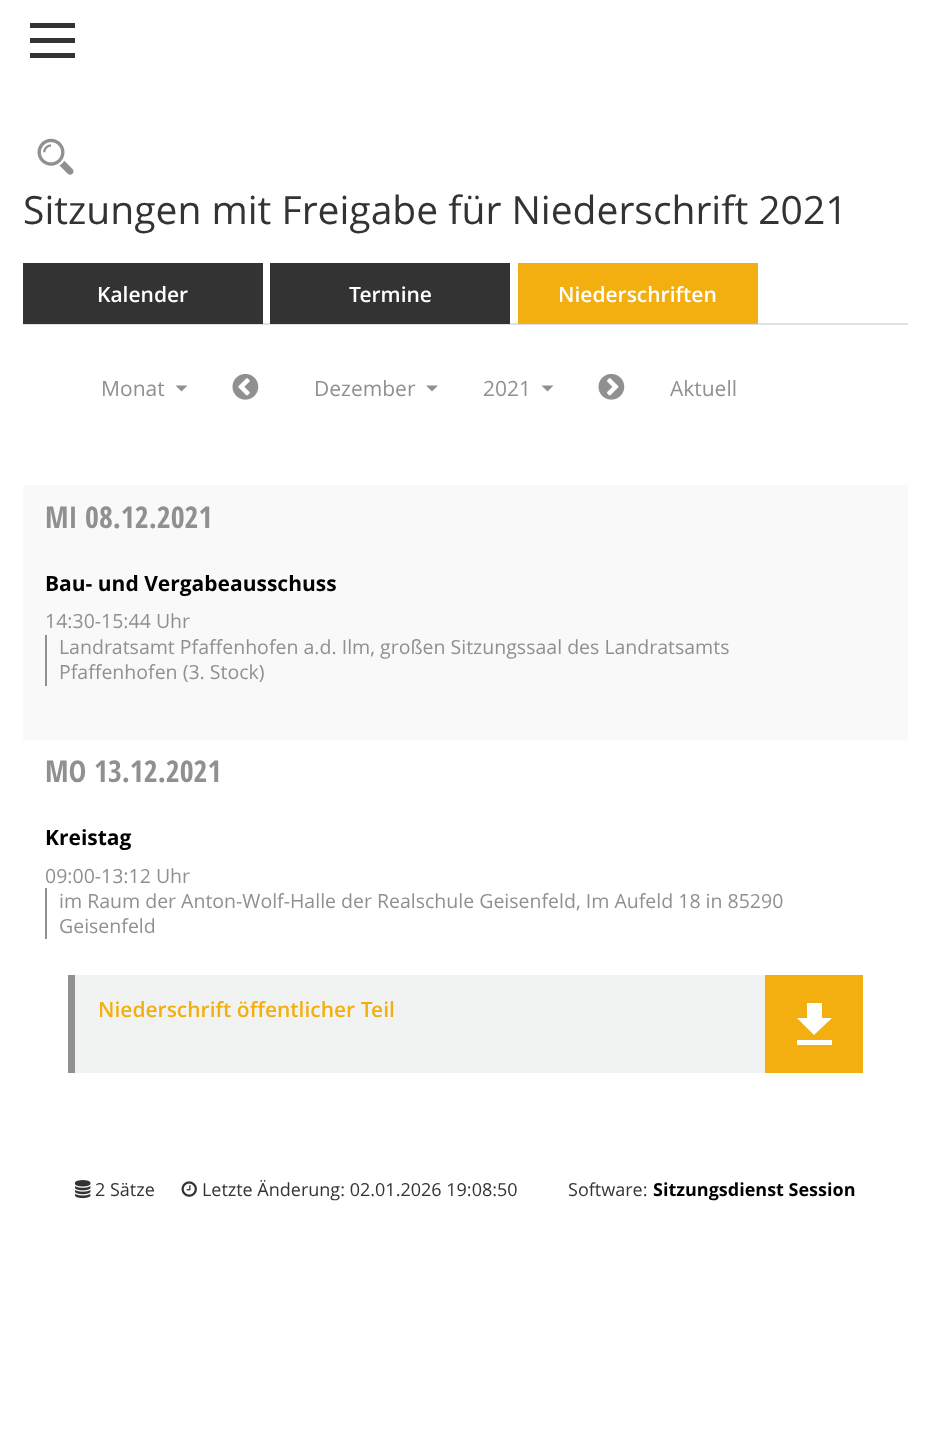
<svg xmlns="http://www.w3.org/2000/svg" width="929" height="1436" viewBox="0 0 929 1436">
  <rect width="100%" height="100%" fill="rgb(255,255,255)"/>
  <rect x="30" y="23" width="45" height="5" fill="rgb(51,51,51)"/>
  <rect x="30" y="38" width="45" height="5" fill="rgb(51,51,51)"/>
  <rect x="30" y="53" width="45" height="5" fill="rgb(51,51,51)"/>
  <image x="37" y="138" width="37" height="37" href="pic1.png"/>
  <text x="23" y="224" font-family="Open Sans" font-size="39" fill="rgb(51,51,51)">Sitzungen mit Freigabe für Niederschrift 2021</text>
  <rect x="23" y="323" width="885" height="2" fill="rgb(222,226,230)"/>
  <rect x="23" y="263" width="240" height="61" fill="rgb(51,51,51)"/>
  <text x="97" y="302" font-family="Open Sans" font-size="21" font-weight="600" fill="rgb(255,255,255)">Kalender</text>
  <rect x="270" y="263" width="240" height="61" fill="rgb(51,51,51)"/>
  <text x="349" y="302" font-family="Open Sans" font-size="21" font-weight="600" fill="rgb(255,255,255)">Termine</text>
  <rect x="518" y="263" width="240" height="61" fill="rgb(243,175,16)"/>
  <text x="558" y="302" font-family="Open Sans" font-size="21" font-weight="600" fill="rgb(255,255,255)">Niederschriften</text>
  <text x="101" y="396" font-family="Open Sans" font-size="21" fill="rgb(144,144,144)">Monat</text>
  <path d="M175.5 385.5H187.5L181.5 391.5Z" fill="rgb(144,144,144)"/>
  <image x="232" y="373" width="27" height="27" href="pic2.png"/>
  <text x="314" y="396" font-family="Open Sans" font-size="21" fill="rgb(144,144,144)">Dezember</text>
  <path d="M426 385.5H438L432 391.5Z" fill="rgb(144,144,144)"/>
  <text x="483" y="396" font-family="Open Sans" font-size="21" fill="rgb(144,144,144)">2021</text>
  <path d="M541.5 385.5H553.5L547.5 391.5Z" fill="rgb(144,144,144)"/>
  <image x="598" y="373" width="27" height="27" href="pic3.png"/>
  <text x="670" y="396" font-family="Open Sans" font-size="21" fill="rgb(144,144,144)">Aktuell</text>
  <rect x="23" y="485" width="885" height="255" fill="rgb(249,249,249)"/>
  <g font-family="Open Sans Condensed" font-size="30" font-weight="bold" fill="rgb(144,144,144)">
    <text x="45" y="528">MI</text>
    <text x="85" y="528">08.12.2021</text>
  </g>
  <text x="45" y="591" font-family="Open Sans" font-size="21" font-weight="bold" fill="rgb(0,0,0)">Bau- und Vergabeausschuss</text>
  <text x="45" y="628" font-family="Open Sans" font-size="19.5" fill="rgb(144,144,144)">14:30-15:44 Uhr</text>
  <rect x="45" y="635" width="2" height="51" fill="rgb(144,144,144)"/>
  <g font-family="Open Sans" font-size="19.5" fill="rgb(144,144,144)">
    <text>
      <tspan x="59" y="654">Landratsamt Pfaffenhofen a.d. Ilm, großen Sitzungssaal des Landratsamts</tspan>
      <tspan x="59" y="679">Pfaffenhofen (3. Stock)</tspan>
    </text>
  </g>
  <g font-family="Open Sans Condensed" font-size="30" font-weight="bold" fill="rgb(144,144,144)">
    <text x="45" y="782">MO</text>
    <text x="94" y="782">13.12.2021</text>
  </g>
  <text x="45" y="845" font-family="Open Sans" font-size="21" font-weight="bold" fill="rgb(0,0,0)">Kreistag</text>
  <text x="45" y="883" font-family="Open Sans" font-size="19.5" fill="rgb(144,144,144)">09:00-13:12 Uhr</text>
  <rect x="45" y="888" width="2" height="51" fill="rgb(144,144,144)"/>
  <g font-family="Open Sans" font-size="19.5" fill="rgb(144,144,144)">
    <text>
      <tspan x="59" y="908">im Raum der Anton-Wolf-Halle der Realschule Geisenfeld, Im Aufeld 18 in 85290</tspan>
      <tspan x="59" y="933">Geisenfeld</tspan>
    </text>
  </g>
  <rect x="75" y="975" width="690" height="98" fill="rgb(240,243,242)"/>
  <rect x="68" y="975" width="7" height="98" fill="rgb(144,144,144)"/>
  <text x="98" y="1017" font-family="Open Sans" font-size="21" font-weight="600" fill="rgb(243,175,16)">Niederschrift öffentlicher Teil</text>
  <rect x="765" y="975" width="98" height="98" fill="rgb(243,175,16)"/>
  <path d="M832 1018H822V1003H807V1018H797L814 1035ZM797 1040V1045H832V1040Z" fill="rgb(255,255,255)"/>
  <image x="75" y="1180" width="16" height="19" href="pic4.png"/>
  <text x="95" y="1196" font-family="Open Sans" font-size="18" fill="rgb(51,51,51)">2 Sätze</text>
  <image x="181" y="1181" width="16" height="16" href="pic5.png"/>
  <g font-family="Open Sans" font-size="18" fill="rgb(51,51,51)">
    <text x="202" y="1196">Letzte Änderung: 02.01.2026 19:08:50</text>
    <text x="568" y="1196">Software:</text>
  </g>
  <text x="653" y="1196" font-family="Open Sans" font-size="18" font-weight="bold" fill="rgb(0,0,0)">Sitzungsdienst Session</text>
</svg>
